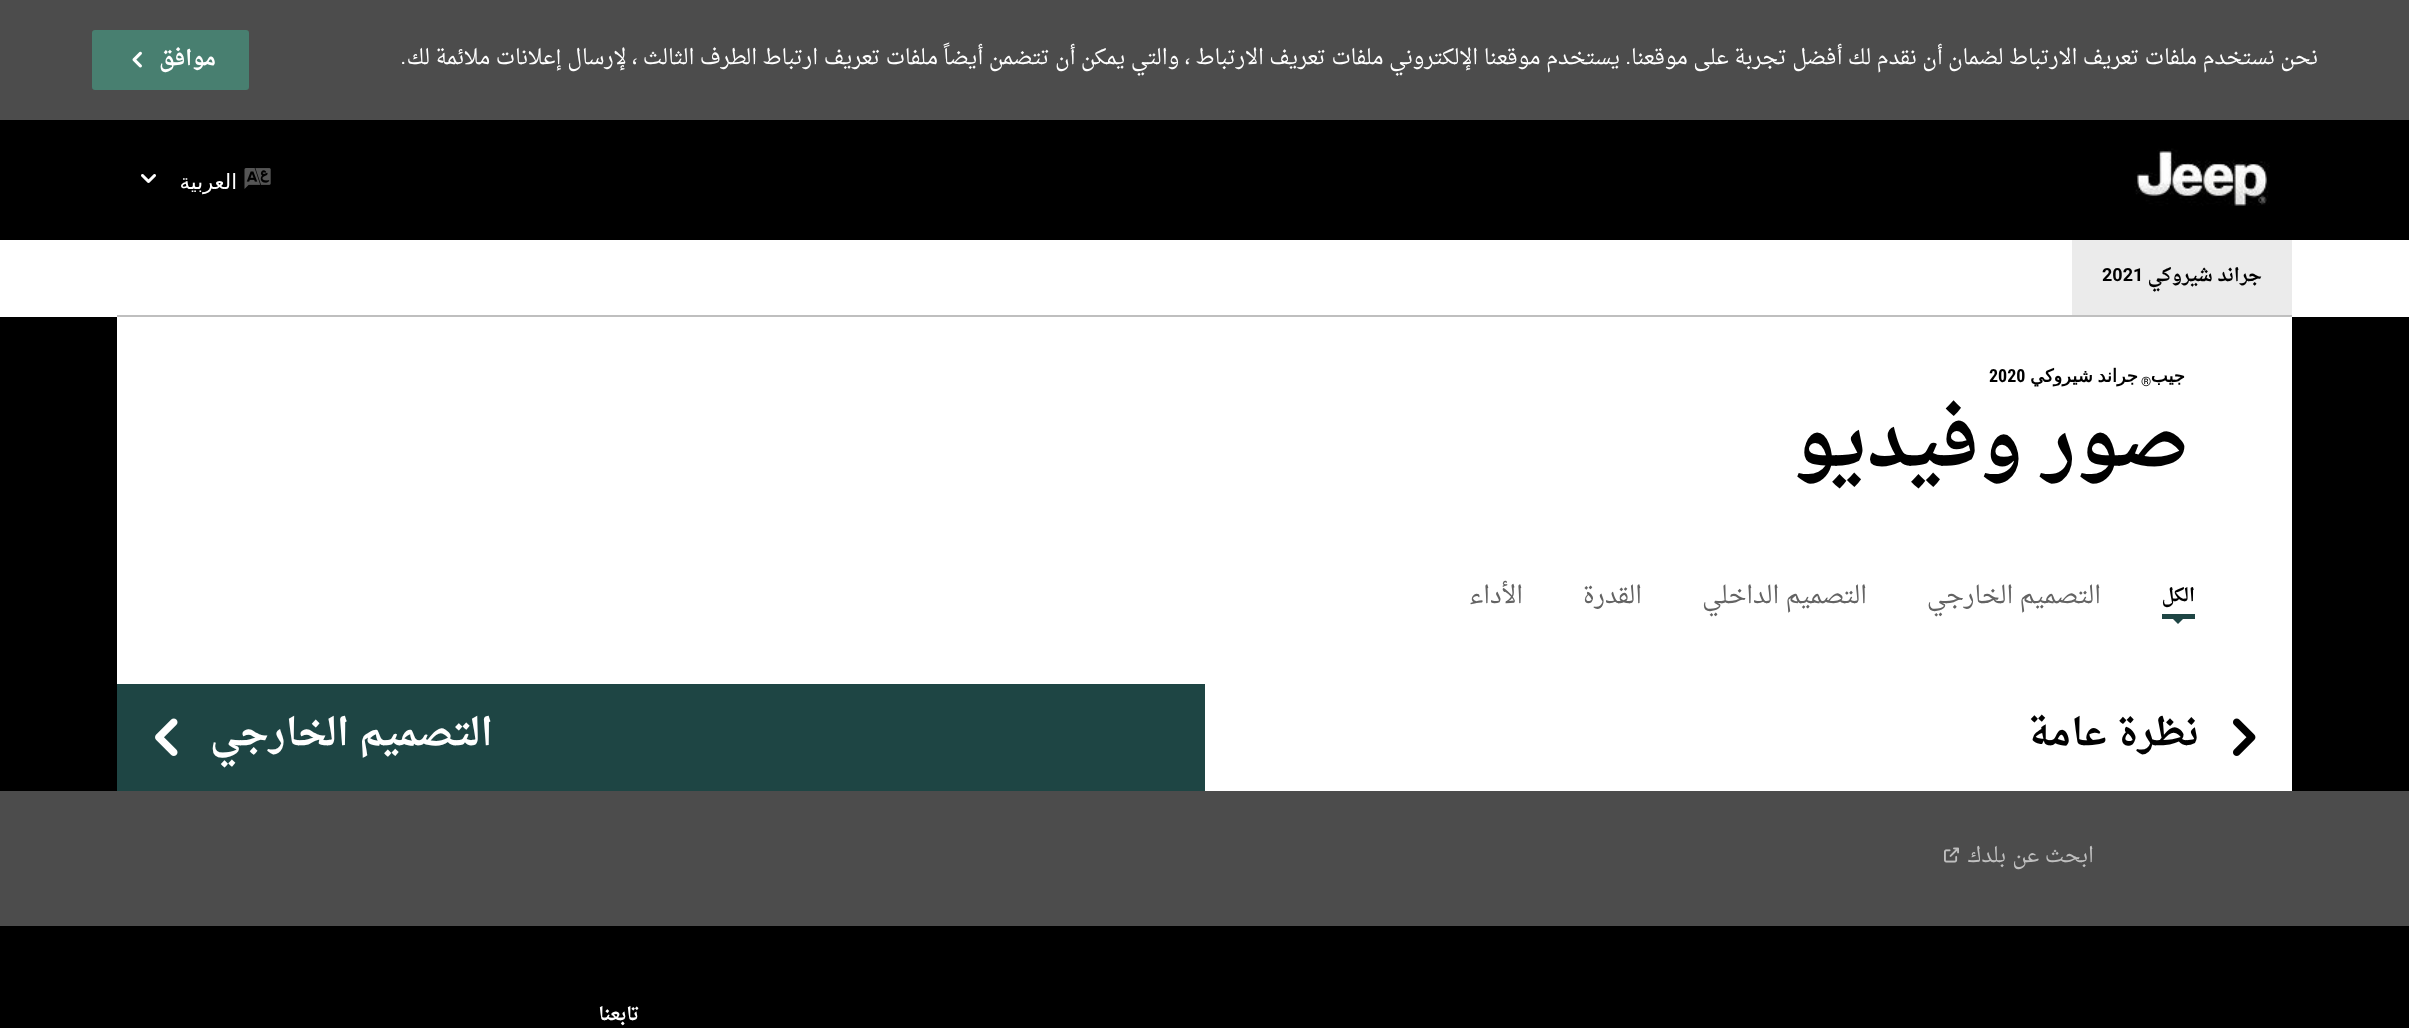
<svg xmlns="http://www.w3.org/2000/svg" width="2409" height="1028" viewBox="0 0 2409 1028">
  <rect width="100%" height="100%" fill="rgb(0,0,0)"/>
  <rect x="0" y="0" width="2409" height="120" fill="rgb(76,76,76)"/>
  <text x="2318" y="64" font-family="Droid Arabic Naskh" font-size="21" direction="rtl" fill="rgb(255,255,255)">نحن نستخدم ملفات تعريف الارتباط لضمان أن نقدم لك أفضل تجربة على موقعنا</text>
  <text x="1631" y="64" font-family="Roboto" font-size="21" direction="rtl" fill="rgb(255,255,255)">.</text>
  <text x="1620" y="64" font-family="Droid Arabic Naskh" font-size="21" direction="rtl" fill="rgb(255,255,255)">يستخدم موقعنا الإلكتروني ملفات تعريف الارتباط ، والتي يمكن أن تتضمن أيضاً ملفات تعريف ارتباط الطرف الثالث ، لإرسال إعلانات ملائمة لك</text>
  <text x="406" y="64" font-family="Roboto" font-size="21" direction="rtl" fill="rgb(255,255,255)">.</text>
  <rect x="92" y="30" width="157" height="60" rx="3" fill="rgb(72,127,112)"/>
  <text x="216" y="65" font-family="Droid Arabic Naskh" font-size="21" font-weight="bold" letter-spacing="1" direction="rtl" fill="rgb(255,255,255)">موافق</text>
  <image x="132" y="51" width="10" height="17" href="pic1.png"/>
  <image x="2134" y="148" width="136" height="58" href="pic2.png"/>
  <image x="244" y="168" width="27" height="21" href="pic3.png"/>
  <text x="237" y="189" font-family="DejaVu Sans" font-size="21" letter-spacing="1" direction="rtl" fill="rgb(255,255,255)">العربية</text>
  <image x="141" y="174" width="15" height="9" href="pic4.png"/>
  <rect x="0" y="240" width="2409" height="77" fill="rgb(255,255,255)"/>
  <rect x="117" y="315" width="2175" height="2" fill="rgb(191,191,191)"/>
  <rect x="2072" y="240" width="220" height="75" fill="rgb(235,235,235)"/>
  <text x="2262" y="281" font-family="Droid Arabic Naskh" font-size="18" font-weight="bold" direction="rtl" fill="rgb(0,0,0)">جراند شيروكي</text>
  <text x="2102" y="281" font-family="Roboto" font-size="18" font-weight="bold" fill="rgb(0,0,0)">2021</text>
  <rect x="117" y="317" width="2175" height="367" fill="rgb(255,255,255)"/>
  <text x="2185" y="382" font-family="DejaVu Sans" font-size="18" font-weight="bold" direction="rtl" fill="rgb(0,0,0)">جيب</text>
  <text x="2141" y="386" font-family="Roboto Condensed" font-size="13" fill="rgb(0,0,0)">®</text>
  <text x="2138" y="382" word-spacing="-1" font-family="DejaVu Sans" font-size="18" font-weight="bold" direction="rtl" fill="rgb(0,0,0)">جراند شيروكي</text>
  <text x="1989" y="382" font-family="Roboto Condensed" font-size="18" font-weight="bold" fill="rgb(0,0,0)">2020</text>
  <text x="2189" y="465" font-family="Droid Arabic Naskh" font-size="75" font-weight="bold" direction="rtl" fill="rgb(0,0,0)">صور وفيديو</text>
  <text x="2195" y="601" font-family="Droid Arabic Naskh" font-size="18" font-weight="bold" direction="rtl" fill="rgb(0,0,0)">الكل</text>
  <rect x="2162" y="614" width="33" height="5" fill="rgb(30,69,68)"/>
  <path d="M2172 618H2184L2178 624Z" fill="rgb(30,69,68)"/>
  <g font-family="Droid Arabic Naskh" font-size="24" direction="rtl" fill="rgb(99,99,99)">
    <text x="2101" y="603">التصميم الخارجي</text>
    <text x="1867" y="603">التصميم الداخلي</text>
    <text x="1642" y="603">القدرة</text>
    <text x="1523" y="603">الأداء</text>
  </g>
  <rect x="1205" y="684" width="1087" height="107" fill="rgb(255,255,255)"/>
  <image x="2233" y="718" width="23" height="38" href="pic5.png"/>
  <text x="2199" y="745" font-family="Droid Arabic Naskh" font-size="37.5" font-weight="bold" direction="rtl" fill="rgb(0,0,0)">نظرة عامة</text>
  <rect x="117" y="684" width="1088" height="107" fill="rgb(30,69,68)"/>
  <text x="493" y="745" font-family="Droid Arabic Naskh" font-size="37.5" font-weight="bold" direction="rtl" fill="rgb(255,255,255)">التصميم الخارجي</text>
  <image x="155" y="718" width="23" height="38" href="pic6.png"/>
  <rect x="0" y="791" width="2409" height="135" fill="rgb(76,76,76)"/>
  <g font-family="Droid Arabic Naskh" font-size="21" direction="rtl" fill="rgb(191,191,191)">
    <text x="2094" y="862">ابحث عن</text>
    <text x="2006" y="862">بلدك</text>
  </g>
  <image x="1944" y="847" width="15" height="16" href="pic7.png"/>
  <text x="639" y="1020" font-family="Droid Arabic Naskh" font-size="18" font-weight="bold" direction="rtl" fill="rgb(255,255,255)">تابعنا</text>
</svg>
